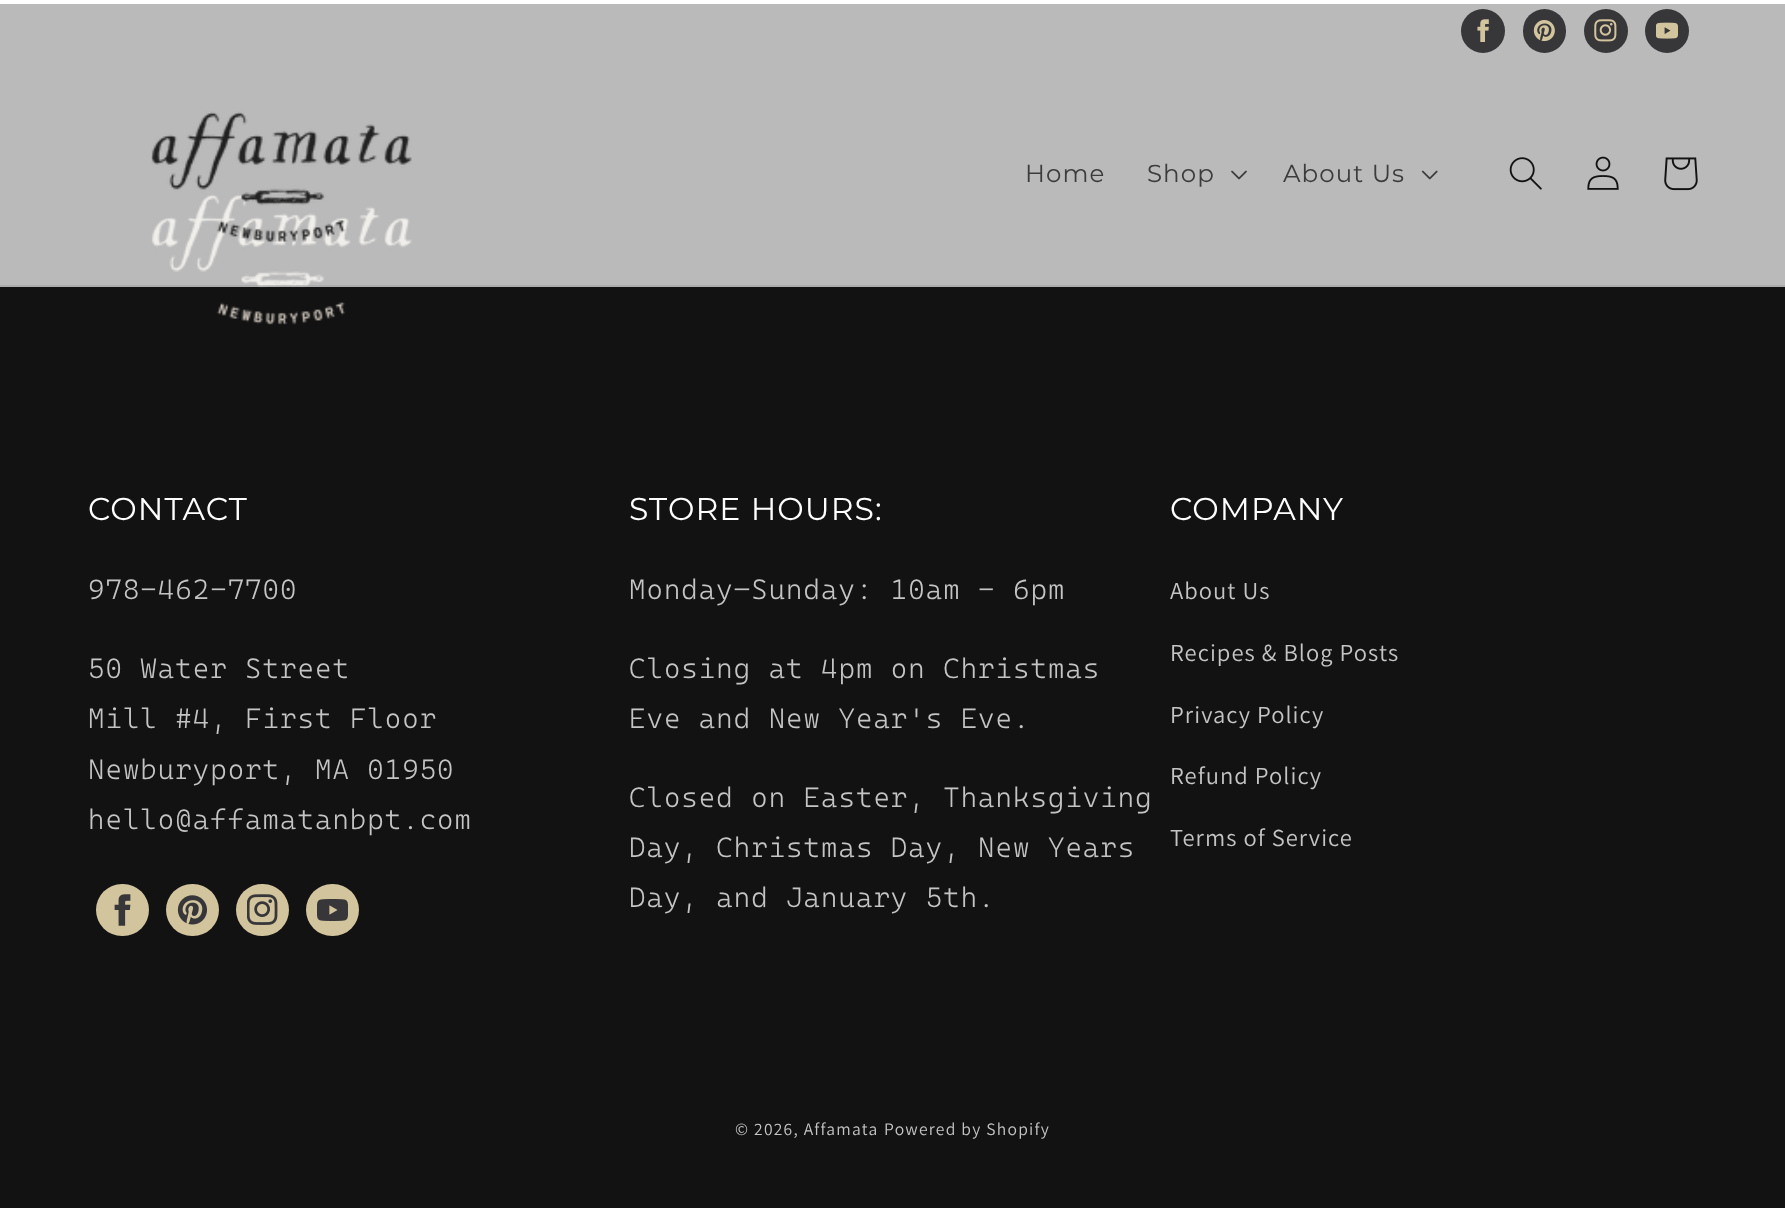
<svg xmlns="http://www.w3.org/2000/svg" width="1785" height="1208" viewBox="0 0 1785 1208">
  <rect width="100%" height="100%" fill="rgb(255,255,255)"/>
  <rect x="0" y="4" width="1785" height="1204" fill="rgb(19,18,19)"/>
  <image x="151" y="194" width="261" height="131" href="pic11.png"/>
  <rect x="0" y="4" width="1785" height="283" fill="rgba(255,255,255,0.71)"/>
  <rect x="0" y="285" width="1785" height="2" fill="rgba(18,18,18,0.08)"/>
  <circle cx="1483" cy="31" r="22" fill="rgb(55,54,57)"/>
  <image x="1477" y="19" width="12" height="23" href="pic1.png"/>
  <rect x="1523" y="9" width="43" height="44" rx="21.5" fill="rgb(55,54,57)"/>
  <image x="1533" y="20" width="22" height="22" href="pic2.png"/>
  <circle cx="1606" cy="31" r="22" fill="rgb(55,54,57)"/>
  <image x="1594" y="19" width="23" height="23" href="pic3.png"/>
  <circle cx="1667" cy="31" r="22" fill="rgb(55,54,57)"/>
  <image x="1656" y="22" width="22" height="17" href="pic4.png"/>
  <image x="151" y="111" width="261" height="131" href="pic5.png"/>
  <g font-family="Montserrat" font-size="24.5" letter-spacing="1.05" fill="rgb(60,60,60)">
    <text x="1025" y="182">Home</text>
    <text x="1147" y="182">Shop</text>
  </g>
  <image x="1231" y="170" width="16" height="10" href="pic6.png"/>
  <text x="1283" y="182" font-family="Montserrat" font-size="24.5" letter-spacing="1.05" fill="rgb(60,60,60)">About Us</text>
  <image x="1421" y="170" width="17" height="10" href="pic7.png"/>
  <image x="1509" y="157" width="33" height="33" href="pic8.png"/>
  <image x="1587" y="156" width="32" height="34" href="pic9.png"/>
  <image x="1664" y="157" width="34" height="34" href="pic10.png"/>
  <text x="88" y="520" font-family="Montserrat" font-size="31.5" letter-spacing="1.05" fill="rgb(255,255,255)">CONTACT</text>
  <g font-family="Cascadia Mono" font-size="28" font-weight="300" letter-spacing="1.05" fill="rgb(196,196,196)">
    <text x="88" y="599">978-462-7700</text>
    <text>
      <tspan x="88" y="678">50 Water Street</tspan>
      <tspan x="88" y="728">Mill #4, First Floor</tspan>
      <tspan x="88" y="779">Newburyport, MA 01950</tspan>
      <tspan x="88" y="829">hello@affamatanbpt.com</tspan>
    </text>
  </g>
  <rect x="96" y="884" width="53" height="52" rx="26" fill="rgb(210,196,157)"/>
  <image x="114" y="894" width="17" height="32" href="pic12.png"/>
  <rect x="166" y="884" width="53" height="52" rx="26" fill="rgb(210,196,157)"/>
  <image x="177" y="895" width="30" height="30" href="pic13.png"/>
  <rect x="236" y="884" width="53" height="52" rx="26" fill="rgb(210,196,157)"/>
  <image x="247" y="894" width="31" height="31" href="pic14.png"/>
  <rect x="306" y="884" width="53" height="52" rx="26" fill="rgb(210,196,157)"/>
  <image x="317" y="899" width="31" height="22" href="pic15.png"/>
  <text x="629" y="520" font-family="Montserrat" font-size="31.5" letter-spacing="1.05" fill="rgb(255,255,255)">STORE HOURS:</text>
  <g font-family="Cascadia Mono" font-size="28" font-weight="300" letter-spacing="1.05" fill="rgb(196,196,196)">
    <text x="629" y="599">Monday–Sunday: 10am - 6pm</text>
    <text>
      <tspan x="629" y="678">Closing at 4pm on Christmas</tspan>
      <tspan x="629" y="728">Eve and New Year's Eve.</tspan>
    </text>
    <text>
      <tspan x="629" y="807">Closed on Easter, Thanksgiving</tspan>
      <tspan x="629" y="857">Day, Christmas Day, New Years</tspan>
      <tspan x="629" y="907">Day, and January 5th.</tspan>
    </text>
  </g>
  <text x="1170" y="520" font-family="Montserrat" font-size="31.5" letter-spacing="1.05" fill="rgb(255,255,255)">COMPANY</text>
  <g font-family="Assistant" font-size="24.5" letter-spacing="1.05" fill="rgb(196,196,196)">
    <text x="1170" y="599">About Us</text>
    <text x="1170" y="661">Recipes &amp; Blog Posts</text>
    <text x="1170" y="723">Privacy Policy</text>
    <text x="1170" y="784">Refund Policy</text>
    <text x="1170" y="846">Terms of Service</text>
  </g>
  <g font-family="Assistant" font-size="17.5" letter-spacing="1.25" fill="rgb(196,196,196)">
    <text x="735" y="1135">© 2026, Affamata</text>
    <text x="884" y="1135">Powered by Shopify</text>
  </g>
</svg>
